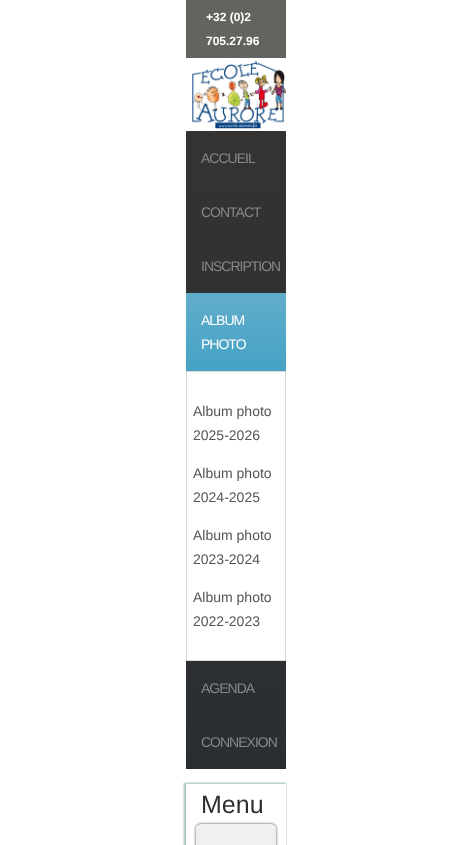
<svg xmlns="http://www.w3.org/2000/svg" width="472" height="845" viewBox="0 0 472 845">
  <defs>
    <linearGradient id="g1" gradientUnits="userSpaceOnUse" x1="236" y1="131" x2="236" y2="769"><stop offset="0" stop-color="rgb(51,51,51)"/><stop offset="1" stop-color="rgb(43,46,49)"/></linearGradient>
    <linearGradient id="g2" gradientUnits="userSpaceOnUse" x1="236" y1="293" x2="236" y2="371"><stop offset="0" stop-color="rgb(97,172,202)"/><stop offset="1" stop-color="rgb(69,163,197)"/></linearGradient>
    <clipPath id="clip1"><path d="M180 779H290V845H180ZM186 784H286V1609H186Z" clip-rule="evenodd"/></clipPath>
    <clipPath id="clip2"><rect x="196" y="824" width="80" height="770" rx="5"/></clipPath>
    <linearGradient id="g3" gradientUnits="userSpaceOnUse" x1="236" y1="825" x2="236" y2="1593"><stop offset="0" stop-color="rgb(240,240,240)"/><stop offset="1" stop-color="rgb(227,227,227)"/></linearGradient>
  </defs>
  <rect width="100%" height="100%" fill="rgb(255,255,255)"/>
  <rect x="186" y="0" width="100" height="58" fill="rgb(99,99,96)"/>
  <g font-family="Liberation Sans" font-size="12" font-weight="bold" fill="rgb(255,255,255)">
    <text x="206" y="21">+32 (0)2</text>
    <text x="206" y="45">705.27.96</text>
  </g>
  <image x="192" y="60" width="94" height="69" href="pic1.png"/>
  <rect x="186" y="131" width="100" height="638" fill="url(#g1)"/>
  <g font-family="Liberation Sans" font-size="14" letter-spacing="-1" fill="rgb(136,136,136)">
    <text x="201" y="163">ACCUEIL</text>
    <text x="201" y="217">CONTACT</text>
    <text x="201" y="271">INSCRIPTION</text>
  </g>
  <rect x="186" y="293" width="100" height="78" fill="url(#g2)"/>
  <g font-family="Liberation Sans" font-size="14" letter-spacing="-1" fill="rgb(255,255,255)">
    <text>
      <tspan x="201" y="325">ALBUM</tspan>
      <tspan x="201" y="349">PHOTO</tspan>
    </text>
  </g>
  <rect x="186.5" y="371.5" width="99" height="289" fill="rgb(255,255,255)" stroke="rgb(217,217,217)"/>
  <g font-family="Liberation Sans" font-size="14" fill="rgb(85,85,85)">
    <text>
      <tspan x="193" y="416">Album photo</tspan>
      <tspan x="193" y="440">2025-2026</tspan>
    </text>
    <text>
      <tspan x="193" y="478">Album photo</tspan>
      <tspan x="193" y="502">2024-2025</tspan>
    </text>
    <text>
      <tspan x="193" y="540">Album photo</tspan>
      <tspan x="193" y="564">2023-2024</tspan>
    </text>
    <text>
      <tspan x="193" y="602">Album photo</tspan>
      <tspan x="193" y="626">2022-2023</tspan>
    </text>
  </g>
  <g font-family="Liberation Sans" font-size="14" letter-spacing="-1" fill="rgb(136,136,136)">
    <text x="201" y="693">AGENDA</text>
    <text x="201" y="747">CONNEXION</text>
  </g>
  <g clip-path="url(#clip1)">
    <rect x="184" y="783" width="102" height="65" fill="rgb(152,190,175)" filter="blur(1px)"/>
  </g>
  <text x="201" y="813" font-family="Liberation Sans" font-size="25" fill="rgb(46,46,46)">Menu</text>
  <rect x="196" y="824" width="80" height="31" rx="5" fill="rgb(68,68,68)" filter="blur(1.5px)"/>
  <g clip-path="url(#clip2)">
    <rect x="196" y="825" width="80" height="20" fill="url(#g3)"/>
  </g>
  <rect x="196.5" y="824.5" width="79" height="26" rx="4.5" fill="none" stroke="rgb(239,239,239)"/>
</svg>
